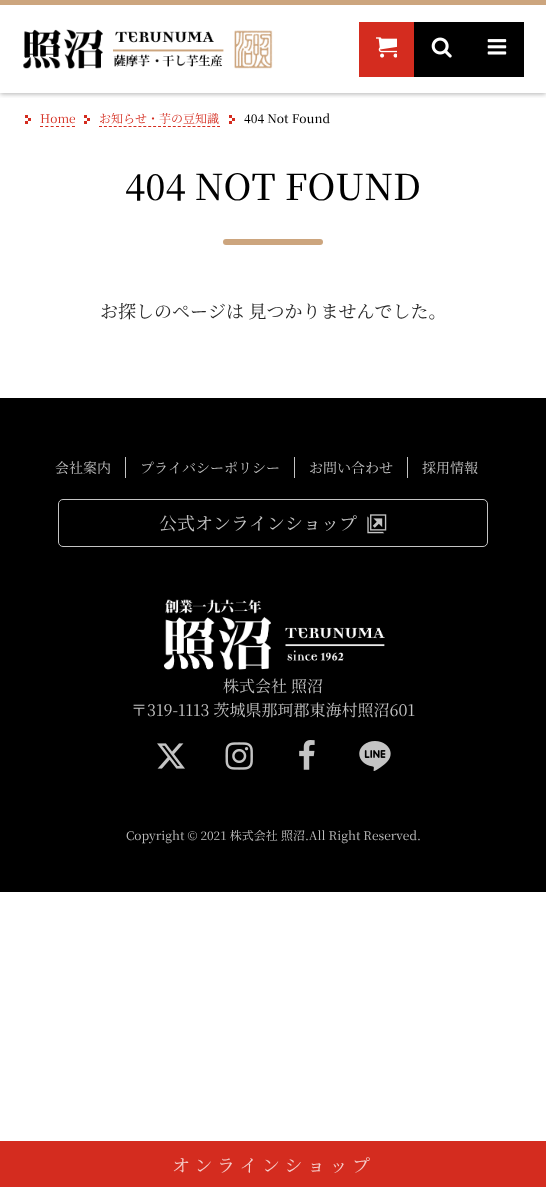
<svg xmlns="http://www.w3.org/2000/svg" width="546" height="1187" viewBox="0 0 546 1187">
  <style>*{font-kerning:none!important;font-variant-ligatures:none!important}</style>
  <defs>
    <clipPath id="clip1"><rect x="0" y="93" width="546" height="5"/></clipPath>
  </defs>
  <rect width="100%" height="100%" fill="rgb(255,255,255)"/>
  <g clip-path="url(#clip1)">
    <rect x="0" y="1" width="546" height="93" fill="rgba(0,0,0,0.3)" filter="blur(2.5px)"/>
  </g>
  <rect x="0" y="0" width="546" height="5" fill="rgb(204,165,126)"/>
  <image x="23" y="29" width="250" height="40" href="pic1.png"/>
  <rect x="359" y="22" width="55" height="55" fill="rgb(212,44,31)"/>
  <image x="376" y="37" width="21" height="21" href="pic2.png"/>
  <rect x="414" y="22" width="110" height="55" fill="rgb(0,0,0)"/>
  <image x="487" y="39" width="20" height="16" href="pic3.png"/>
  <image x="431" y="37" width="21" height="21" href="pic4.png"/>
  <rect x="25" y="115" width="3" height="3" fill="rgb(212,44,31)"/>
  <rect x="28" y="118" width="3" height="3" fill="rgb(212,44,31)"/>
  <rect x="25" y="121" width="3" height="3" fill="rgb(212,44,31)"/>
  <text x="40" y="123" font-family="Noto Serif JP" font-size="12" fill="rgb(212,44,31)">Home</text>
  <path d="M40 126.5H75" fill="none" stroke="rgb(212,44,31)" stroke-dasharray="3 2.33"/>
  <rect x="84" y="115" width="3" height="3" fill="rgb(212,44,31)"/>
  <rect x="87" y="118" width="3" height="3" fill="rgb(212,44,31)"/>
  <rect x="84" y="121" width="3" height="3" fill="rgb(212,44,31)"/>
  <text x="99" y="123" font-family="Noto Serif JP" font-size="12" fill="rgb(212,44,31)">お知らせ・芋の豆知識</text>
  <path d="M99 126.5H220" fill="none" stroke="rgb(212,44,31)" stroke-dasharray="3 1.92"/>
  <rect x="229" y="115" width="3" height="3" fill="rgb(212,44,31)"/>
  <rect x="232" y="118" width="3" height="3" fill="rgb(212,44,31)"/>
  <rect x="229" y="121" width="3" height="3" fill="rgb(212,44,31)"/>
  <text x="244" y="123" font-family="Noto Serif JP" font-size="12" font-weight="500" fill="rgb(0,0,0)">404 Not Found</text>
  <text x="125" y="200" font-family="Noto Serif JP" font-size="36" font-weight="500" fill="rgb(0,0,0)">404 NOT FOUND</text>
  <rect x="223" y="239" width="100" height="6" rx="3" fill="rgb(204,165,126)"/>
  <text x="100" y="318" font-family="Noto Serif JP" font-size="18" fill="rgb(38,38,38)">お探しのページは 見つかりませんでした。</text>
  <rect x="0" y="398" width="546" height="494" fill="rgb(0,0,0)"/>
  <text x="55" y="473" font-family="Noto Serif JP" font-size="14" fill="rgb(196,196,196)">会社案内</text>
  <rect x="125" y="457" width="1" height="21" fill="rgb(196,196,196)"/>
  <text x="140" y="473" font-family="Noto Serif JP" font-size="14" fill="rgb(196,196,196)">プライバシーポリシー</text>
  <rect x="294" y="457" width="1" height="21" fill="rgb(196,196,196)"/>
  <text x="309" y="473" font-family="Noto Serif JP" font-size="14" fill="rgb(196,196,196)">お問い合わせ</text>
  <rect x="407" y="457" width="1" height="21" fill="rgb(196,196,196)"/>
  <text x="422" y="473" font-family="Noto Serif JP" font-size="14" fill="rgb(196,196,196)">採用情報</text>
  <rect x="58.5" y="499.5" width="429" height="47" rx="4.5" fill="none" stroke="rgb(196,196,196)"/>
  <text x="159" y="530" font-family="Noto Serif JP" font-size="18" fill="rgb(196,196,196)">公式オンラインショップ</text>
  <image x="367" y="514" width="20" height="20" href="pic5.png"/>
  <image x="163" y="599" width="222" height="71" href="pic6.png"/>
  <g font-family="Noto Serif JP" font-size="16" fill="rgb(196,196,196)">
    <text x="223" y="692">株式会社 照沼</text>
    <text x="131" y="716">〒319-1113 茨城県那珂郡東海村照沼601</text>
  </g>
  <image x="157" y="743" width="28" height="26" href="pic7.png"/>
  <image x="225" y="742" width="28" height="28" href="pic8.png"/>
  <image x="299" y="740" width="16" height="30" href="pic9.png"/>
  <image x="359" y="741" width="32" height="30" href="pic10.png"/>
  <text x="126" y="840" font-family="Noto Serif JP" font-size="12" fill="rgb(196,196,196)">Copyright © 2021 株式会社 照沼.All Right Reserved.</text>
  <rect x="0" y="1141" width="546" height="46" fill="rgb(212,44,31)"/>
  <text x="172" y="1172" font-family="Noto Serif JP" font-size="18" letter-spacing="4.5" fill="rgb(245,206,203)">オンラインショップ</text>
</svg>
